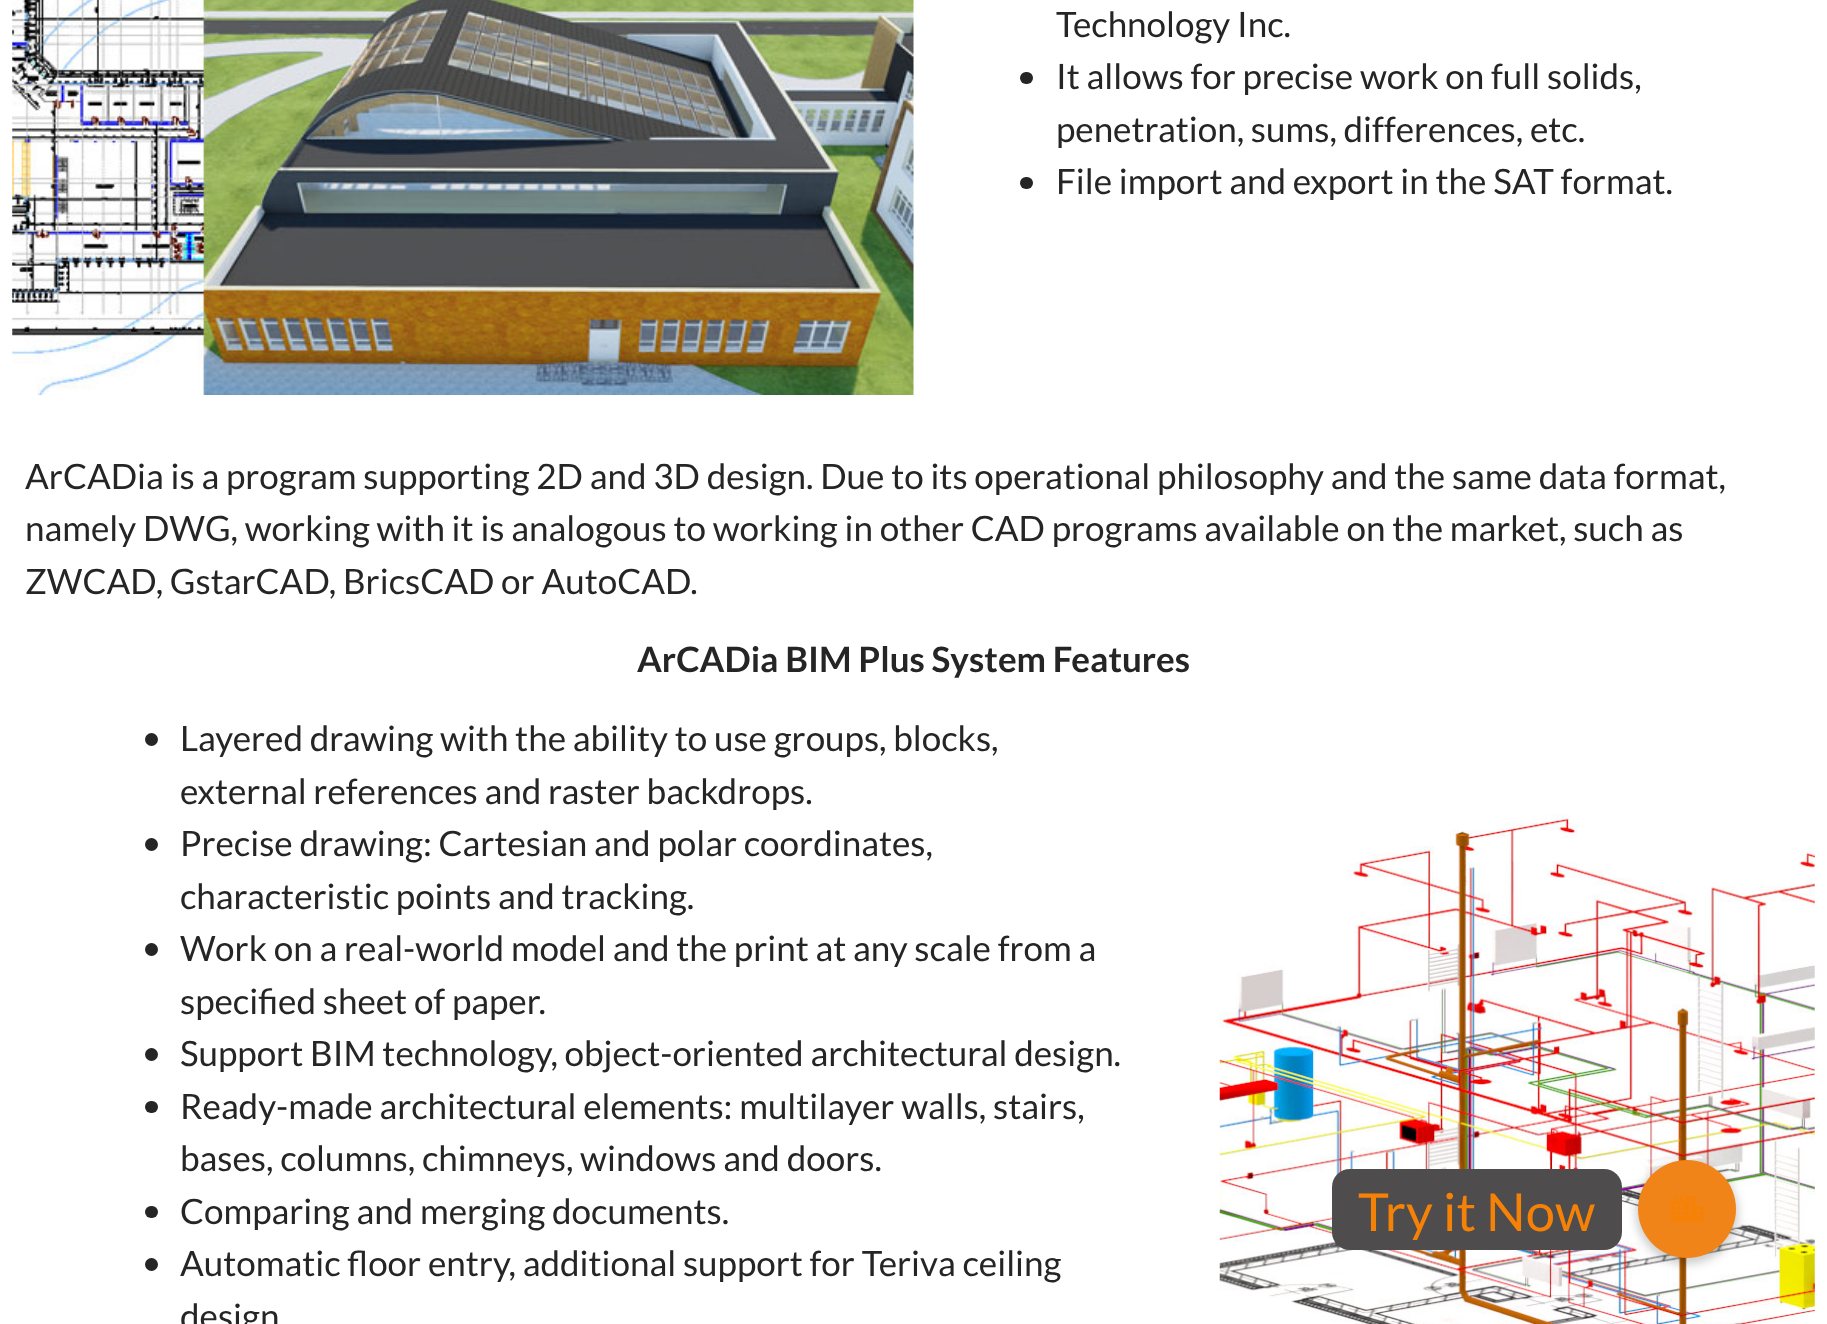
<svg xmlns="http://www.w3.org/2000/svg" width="1827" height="1324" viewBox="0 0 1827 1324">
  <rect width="100%" height="100%" fill="rgb(255,255,255)"/>
  <image x="12" y="0" width="902" height="395" href="pic1.png"/>
  <text x="1056" y="37" font-family="Lato" font-size="35" fill="rgb(37,37,37)">Technology Inc.</text>
  <rect x="1020" y="72" width="13" height="12" rx="6" fill="rgb(37,37,37)"/>
  <g font-family="Lato" font-size="35" fill="rgb(37,37,37)">
    <text>
      <tspan x="1056" y="89">It allows for precise work on full solids,</tspan>
      <tspan x="1056" y="142">penetration, sums, differences, etc.</tspan>
    </text>
  </g>
  <rect x="1020" y="177" width="13" height="12" rx="6" fill="rgb(37,37,37)"/>
  <g font-family="Lato" font-size="35" fill="rgb(37,37,37)">
    <text x="1056" y="194">File import and export in the SAT format.</text>
    <text>
      <tspan x="25" y="489">ArCADia is a program supporting 2D and 3D design. Due to its operational philosophy and the same data format,</tspan>
      <tspan x="25" y="541">namely DWG, working with it is analogous to working in other CAD programs available on the market, such as</tspan>
      <tspan x="25" y="594">ZWCAD, GstarCAD, BricsCAD or AutoCAD.</tspan>
    </text>
  </g>
  <text x="637" y="672" font-family="Lato" font-size="35" font-weight="bold" fill="rgb(37,37,37)">ArCADia BIM Plus System Features</text>
  <circle cx="151.5" cy="739.5" r="6.5" fill="rgb(37,37,37)"/>
  <g font-family="Lato" font-size="35" fill="rgb(37,37,37)">
    <text>
      <tspan x="180" y="751">Layered drawing with the ability to use groups, blocks,</tspan>
      <tspan x="180" y="804">external references and raster backdrops.</tspan>
    </text>
  </g>
  <circle cx="151.5" cy="844.5" r="6.5" fill="rgb(37,37,37)"/>
  <g font-family="Lato" font-size="35" fill="rgb(37,37,37)">
    <text>
      <tspan x="180" y="856">Precise drawing: Cartesian and polar coordinates,</tspan>
      <tspan x="180" y="909">characteristic points and tracking.</tspan>
    </text>
  </g>
  <circle cx="151.5" cy="949.5" r="6.5" fill="rgb(37,37,37)"/>
  <g font-family="Lato" font-size="35" fill="rgb(37,37,37)">
    <text>
      <tspan x="180" y="961">Work on a real-world model and the print at any scale from a</tspan>
      <tspan x="180" y="1014">specified sheet of paper.</tspan>
    </text>
  </g>
  <circle cx="151.5" cy="1054.5" r="6.5" fill="rgb(37,37,37)"/>
  <text x="180" y="1066" font-family="Lato" font-size="35" fill="rgb(37,37,37)">Support BIM technology, object-oriented architectural design.</text>
  <rect x="145" y="1101" width="13" height="12" rx="6" fill="rgb(37,37,37)"/>
  <g font-family="Lato" font-size="35" fill="rgb(37,37,37)">
    <text>
      <tspan x="180" y="1119">Ready-made architectural elements: multilayer walls, stairs,</tspan>
      <tspan x="180" y="1171">bases, columns, chimneys, windows and doors.</tspan>
    </text>
  </g>
  <rect x="145" y="1206" width="13" height="12" rx="6" fill="rgb(37,37,37)"/>
  <text x="180" y="1224" font-family="Lato" font-size="35" fill="rgb(37,37,37)">Comparing and merging documents.</text>
  <circle cx="151.5" cy="1264.5" r="6.5" fill="rgb(37,37,37)"/>
  <g font-family="Lato" font-size="35" fill="rgb(37,37,37)">
    <text>
      <tspan x="180" y="1276">Automatic floor entry, additional support for Teriva ceiling</tspan>
      <tspan x="180" y="1329">design</tspan>
    </text>
  </g>
  <image x="1219" y="814" width="596" height="510" href="pic2.png"/>
  <rect x="1636" y="1162" width="102" height="102" rx="51" fill="rgba(0,0,0,0.2)" filter="blur(5px)"/>
  <circle cx="1687" cy="1209" r="49" fill="rgb(240,132,25)"/>
  <rect x="1332" y="1169" width="290" height="81" rx="18" fill="rgb(78,76,76)"/>
  <text x="1358" y="1231" font-family="Lato" font-size="52.5" fill="rgb(245,130,6)">Try it Now</text>
  <image x="1670" y="1196" width="34" height="26" href="pic3.png"/>
</svg>
